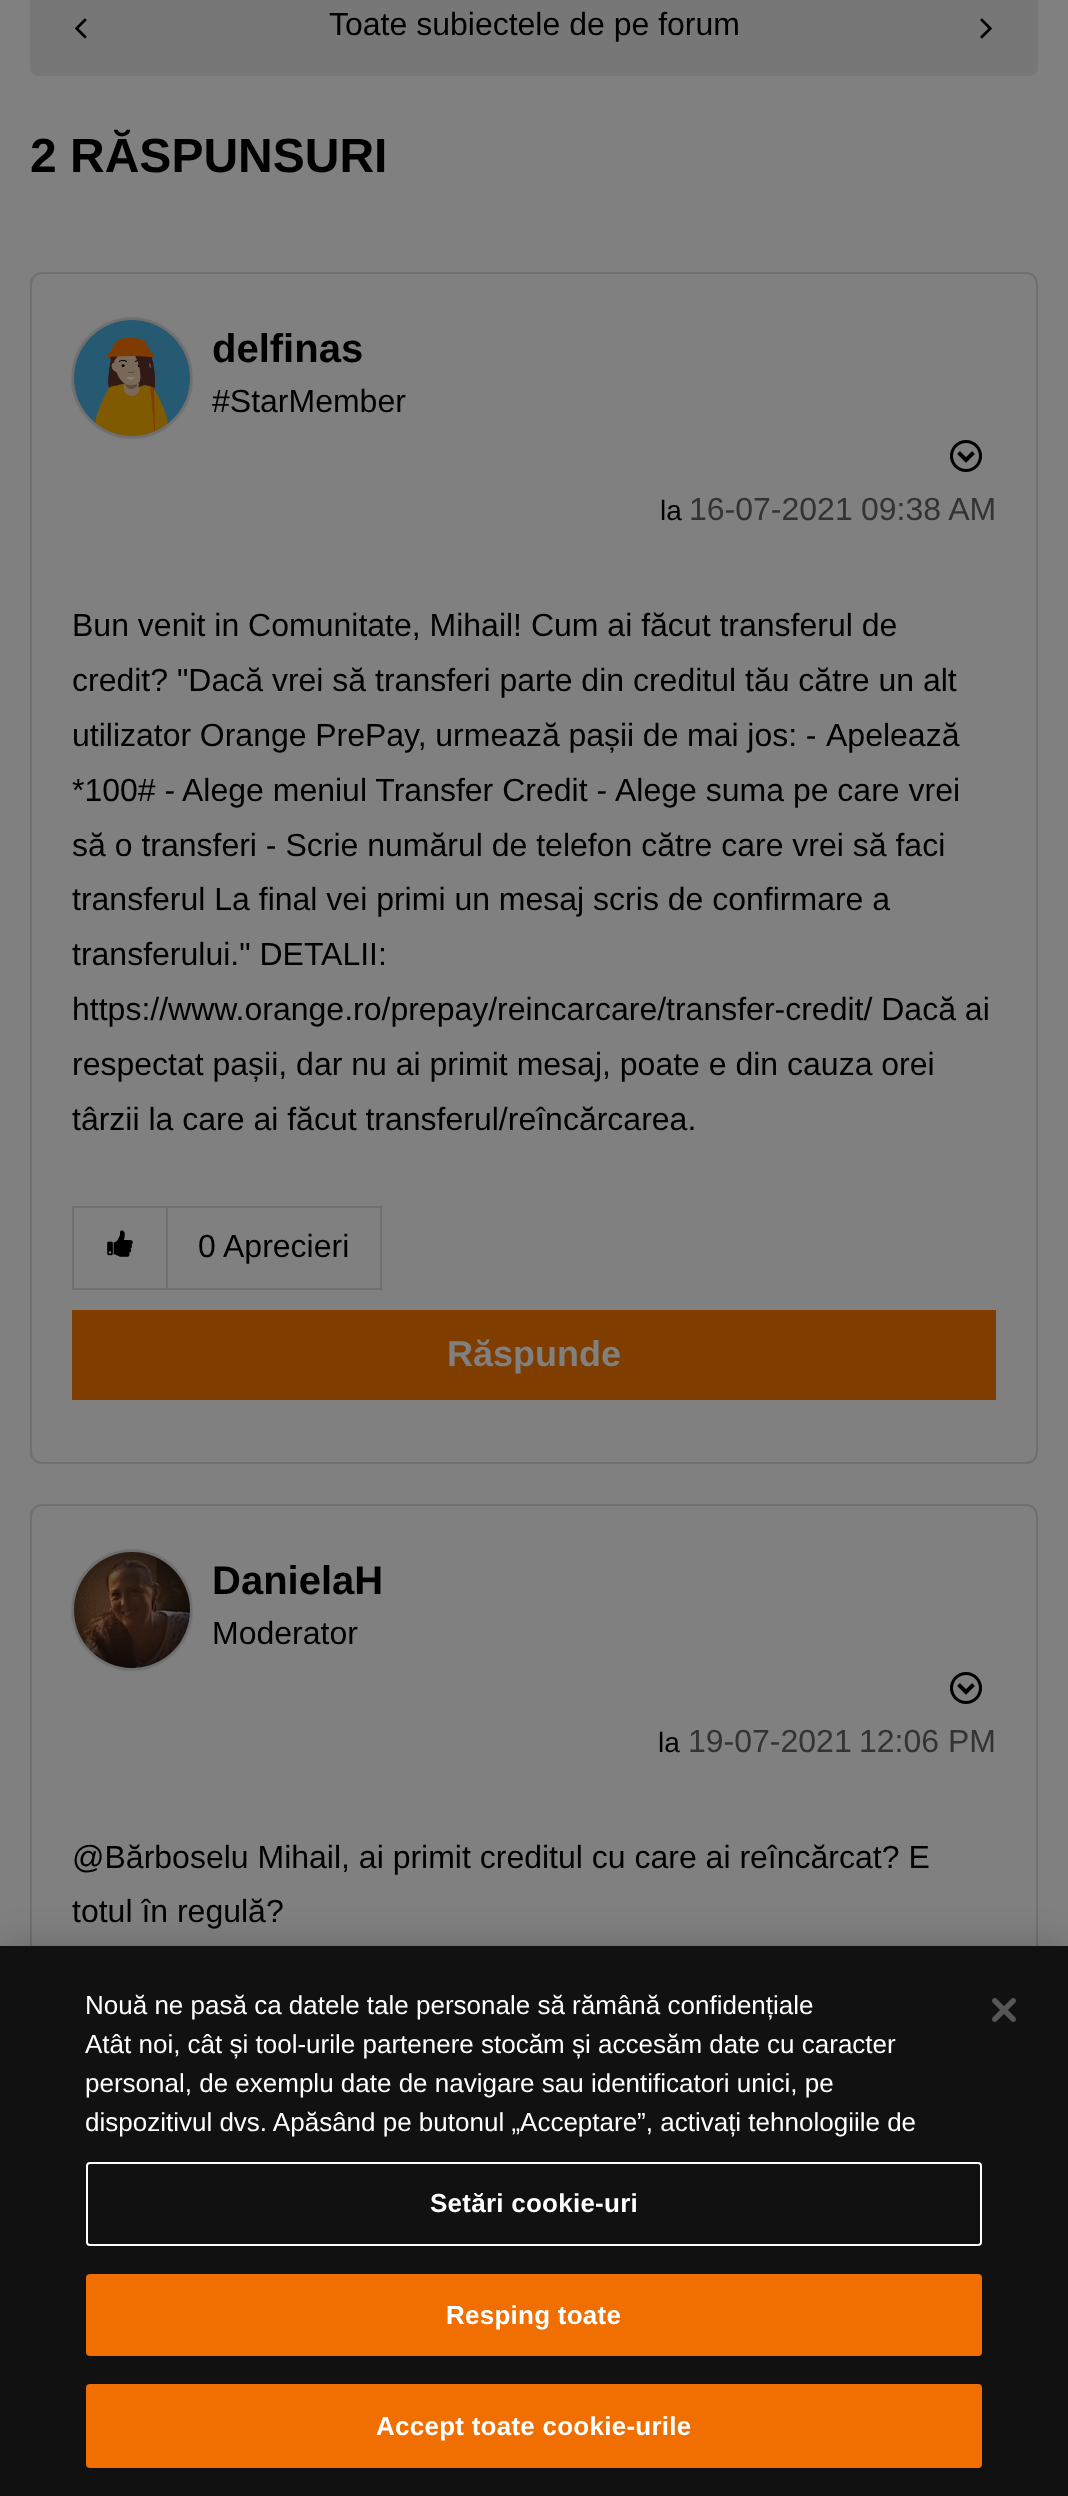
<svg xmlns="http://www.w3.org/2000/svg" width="1068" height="2496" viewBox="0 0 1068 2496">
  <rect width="100%" height="100%" fill="rgb(128,128,128)"/>
  <rect x="30" y="-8" width="1008" height="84" rx="8" fill="rgb(119,119,119)"/>
  <image x="74" y="18" width="13" height="21" href="pic1.png"/>
  <text x="329" y="35" font-family="Liberation Sans" font-size="32" fill="rgb(0,0,0)">Toate subiectele de pe forum</text>
  <image x="980" y="18" width="12" height="21" href="pic2.png"/>
  <text x="30" y="172" font-family="Liberation Sans" font-size="48" font-weight="bold" fill="rgb(0,0,0)">2 RĂSPUNSURI</text>
  <rect x="31" y="273" width="1006" height="1190" rx="11" fill="none" stroke="rgb(111,111,111)" stroke-width="2"/>
  <rect x="72" y="318" width="120" height="120" rx="60" fill="rgb(98,98,98)" filter="blur(1px)"/>
  <circle cx="132" cy="378" r="59" fill="none" stroke="rgb(111,111,111)" stroke-width="2"/>
  <image x="74" y="320" width="116" height="116" href="pic3.png"/>
  <text x="212" y="362" font-family="Liberation Sans" font-size="40" font-weight="bold" fill="rgb(0,0,0)">delfinas</text>
  <text x="212" y="412" font-family="Liberation Sans" font-size="32" fill="rgb(0,0,0)">#StarMember</text>
  <image x="950" y="440" width="32" height="32" href="pic4.png"/>
  <text x="660" y="520" font-family="Liberation Sans" font-size="28" fill="rgb(0,0,0)">la</text>
  <g font-family="Liberation Sans" font-size="32" fill="rgb(51,51,51)">
    <text x="689" y="520">16-07-2021</text>
    <text x="861" y="520">09:38 AM</text>
  </g>
  <g font-family="Liberation Sans" font-size="32" fill="rgb(0,0,0)">
    <text>
      <tspan x="72" y="636">Bun venit in Comunitate, Mihail! Cum ai făcut transferul de</tspan>
      <tspan x="72" y="691">credit? "Dacă vrei să transferi parte din creditul tău către un alt</tspan>
      <tspan x="72" y="746" word-spacing="-0.25">utilizator Orange PrePay, urmează pașii de mai jos: -</tspan>
    </text>
    <text x="826" y="746">Apelează</text>
    <text x="72" y="801">*100# -</text>
    <text x="182" y="801">Alege meniul Transfer Credit -</text>
    <text x="615" y="801">Alege suma pe care vrei</text>
    <text>
      <tspan x="72" y="856">să o transferi - Scrie numărul de telefon către care vrei să faci</tspan>
      <tspan x="72" y="910">transferul La final vei primi un mesaj scris de confirmare a</tspan>
      <tspan x="72" y="965">transferului." DETALII:</tspan>
      <tspan x="72" y="1020">https://www.orange.ro/prepay/reincarcare/transfer-credit/ Dacă ai</tspan>
      <tspan x="72" y="1075">respectat pașii, dar nu ai primit mesaj, poate e din cauza orei</tspan>
      <tspan x="72" y="1130">târzii la care ai făcut transferul/reîncărcarea.</tspan>
    </text>
  </g>
  <rect x="73" y="1207" width="308" height="82" fill="none" stroke="rgb(111,111,111)" stroke-width="2"/>
  <rect x="166" y="1208" width="2" height="80" fill="rgb(111,111,111)"/>
  <image x="107" y="1230" width="26" height="27" href="pic5.png"/>
  <g font-family="Liberation Sans" font-size="32" fill="rgb(0,0,0)">
    <text x="198" y="1257">0</text>
    <text x="223" y="1257">Aprecieri</text>
  </g>
  <rect x="72" y="1310" width="924" height="90" fill="rgb(128,61,0)"/>
  <text x="447" y="1366" font-family="Liberation Sans" font-size="36" font-weight="bold" fill="rgb(128,128,128)">Răspunde</text>
  <rect x="31" y="1505" width="1006" height="750" rx="11" fill="none" stroke="rgb(111,111,111)" stroke-width="2"/>
  <rect x="72" y="1550" width="120" height="120" rx="60" fill="rgb(98,98,98)" filter="blur(1px)"/>
  <circle cx="132" cy="1610" r="59" fill="none" stroke="rgb(111,111,111)" stroke-width="2"/>
  <image x="74" y="1552" width="116" height="116" href="pic6.png"/>
  <text x="212" y="1594" font-family="Liberation Sans" font-size="40" font-weight="bold" fill="rgb(0,0,0)">DanielaH</text>
  <text x="212" y="1644" font-family="Liberation Sans" font-size="32" fill="rgb(0,0,0)">Moderator</text>
  <image x="950" y="1672" width="32" height="32" href="pic4.png"/>
  <text x="658" y="1752" font-family="Liberation Sans" font-size="28" fill="rgb(0,0,0)">la</text>
  <g font-family="Liberation Sans" font-size="32" fill="rgb(51,51,51)">
    <text x="688" y="1752">19-07-2021</text>
    <text x="859" y="1752">12:06 PM</text>
  </g>
  <g font-family="Liberation Sans" font-size="32" fill="rgb(0,0,0)">
    <text>
      <tspan x="72" y="1868">@Bărboselu Mihail, ai primit creditul cu care ai reîncărcat? E</tspan>
      <tspan x="72" y="1922">totul în regulă?</tspan>
    </text>
  </g>
  <rect x="0" y="1946" width="1068" height="550" fill="rgba(0,0,0,0.2)" filter="blur(18px)"/>
  <rect x="0" y="1946" width="1068" height="550" fill="rgb(17,17,17)"/>
  <g font-family="Liberation Sans" font-size="26" fill="rgb(255,255,255)">
    <text>
      <tspan x="85" y="2014">Nouă ne pasă ca datele tale personale să rămână confidențiale</tspan>
      <tspan x="85" y="2053">Atât noi, cât și tool-urile partenere stocăm și accesăm date cu caracter</tspan>
      <tspan x="85" y="2092">personal, de exemplu date de navigare sau identificatori unici, pe</tspan>
      <tspan x="85" y="2131">dispozitivul dvs. Apăsând pe butonul „Acceptare”, activați tehnologiile de</tspan>
    </text>
  </g>
  <rect x="87" y="2163" width="894" height="82" rx="3" fill="none" stroke="rgb(255,255,255)" stroke-width="2"/>
  <text x="430" y="2212" font-family="Liberation Sans" font-size="26" font-weight="bold" letter-spacing="0.25" fill="rgb(255,255,255)">Setări cookie-uri</text>
  <rect x="87" y="2275" width="894" height="80" rx="3" fill="rgb(241,110,0)" stroke="rgb(241,110,0)" stroke-width="2"/>
  <text x="446" y="2324" font-family="Liberation Sans" font-size="26" font-weight="bold" letter-spacing="0.25" fill="rgb(255,255,255)">Resping toate</text>
  <rect x="87" y="2385" width="894" height="82" rx="3" fill="rgb(241,110,0)" stroke="rgb(241,110,0)" stroke-width="2"/>
  <text x="376" y="2435" font-family="Liberation Sans" font-size="26" font-weight="bold" letter-spacing="0.25" fill="rgb(255,255,255)">Accept toate cookie-urile</text>
  <image x="992" y="1998" width="24" height="24" href="pic7.png"/>
</svg>
